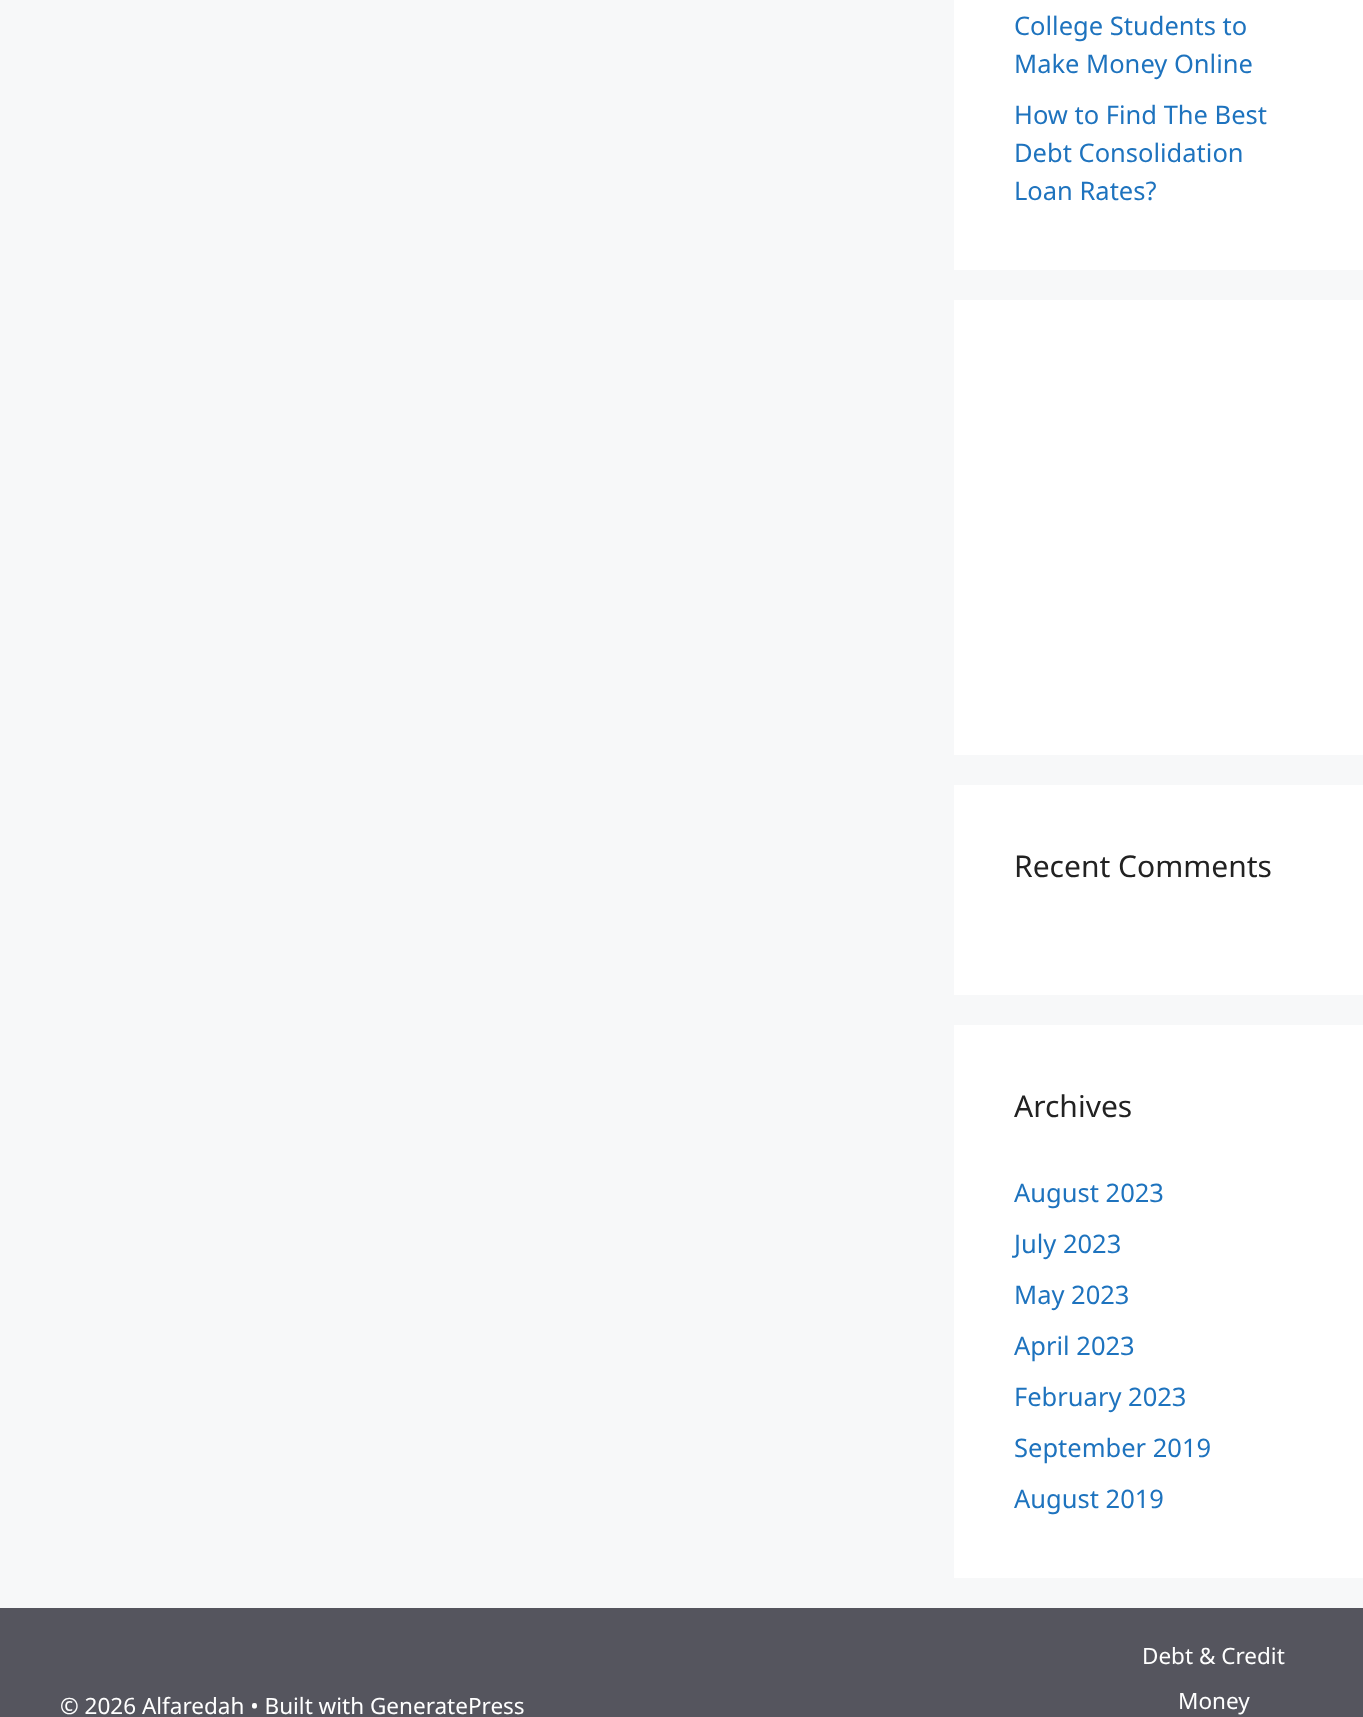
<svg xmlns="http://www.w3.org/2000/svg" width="1363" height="1717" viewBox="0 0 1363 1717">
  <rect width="100%" height="100%" fill="rgb(247,248,249)"/>
  <rect x="954" y="0" width="409" height="270" fill="rgb(255,255,255)"/>
  <g font-family="Noto Sans" font-size="25.5" fill="rgb(30,115,190)">
    <text>
      <tspan x="1014" y="35">College Students to</tspan>
      <tspan x="1014" y="73">Make Money Online</tspan>
    </text>
    <text>
      <tspan x="1014" y="124">How to Find The Best</tspan>
      <tspan x="1014" y="162">Debt Consolidation</tspan>
      <tspan x="1014" y="200">Loan Rates?</tspan>
    </text>
  </g>
  <rect x="954" y="300" width="409" height="455" fill="rgb(255,255,255)"/>
  <rect x="954" y="785" width="409" height="210" fill="rgb(255,255,255)"/>
  <text x="1014" y="877" font-family="Noto Sans" font-size="30" fill="rgb(34,34,34)">Recent Comments</text>
  <rect x="954" y="1025" width="409" height="553" fill="rgb(255,255,255)"/>
  <text x="1014" y="1117" font-family="Noto Sans" font-size="30" fill="rgb(34,34,34)">Archives</text>
  <g font-family="Noto Sans" font-size="25.5" fill="rgb(30,115,190)">
    <text x="1014" y="1202">August 2023</text>
    <text x="1014" y="1253">July 2023</text>
    <text x="1014" y="1304">May 2023</text>
    <text x="1014" y="1355">April 2023</text>
    <text x="1014" y="1406">February 2023</text>
    <text x="1014" y="1457">September 2019</text>
    <text x="1014" y="1508">August 2019</text>
  </g>
  <rect x="0" y="1608" width="1363" height="109" fill="rgb(85,85,94)"/>
  <g font-family="Noto Sans" font-size="22.5" fill="rgb(255,255,255)">
    <text x="60" y="1714">© 2026 Alfaredah • Built with GeneratePress</text>
    <text x="1142" y="1664">Debt &amp; Credit</text>
    <text x="1178" y="1709">Money</text>
  </g>
</svg>
